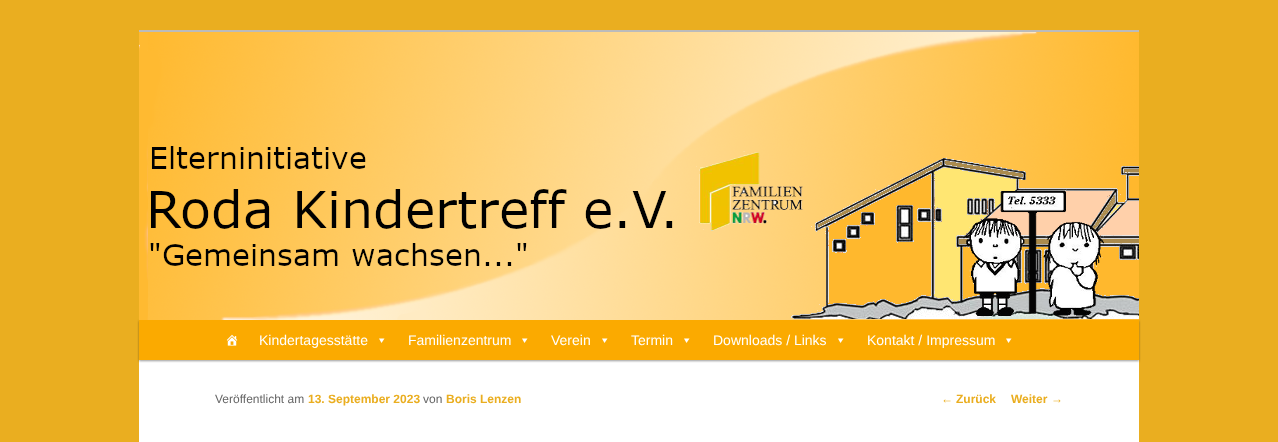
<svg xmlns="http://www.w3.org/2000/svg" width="1278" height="442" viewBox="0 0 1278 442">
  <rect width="100%" height="100%" fill="rgb(234,174,32)"/>
  <rect x="139" y="40" width="1000" height="402" fill="rgb(255,255,255)"/>
  <rect x="139" y="30" width="1000" height="2" fill="rgb(187,187,187)"/>
  <rect x="139" y="321" width="1000" height="40" fill="rgba(0,0,0,0.4)" filter="blur(1px)"/>
  <image x="139" y="32" width="1000" height="288" href="pic1.png"/>
  <rect x="139" y="320" width="1000" height="40" fill="rgb(251,170,0)"/>
  <image x="226" y="334" width="12" height="12" href="pic2.png"/>
  <text x="259" y="345" font-family="Liberation Sans" font-size="14" fill="rgb(255,255,255)">Kindertagesstätte</text>
  <path d="M384.5 338.5L381.5 343L379 338.5Z" fill="rgb(255,255,255)"/>
  <text x="408" y="345" font-family="Liberation Sans" font-size="14" fill="rgb(255,255,255)">Familienzentrum</text>
  <path d="M527.5 338.5L524.5 343L522 338.5Z" fill="rgb(255,255,255)"/>
  <text x="551" y="345" font-family="Liberation Sans" font-size="14" fill="rgb(255,255,255)">Verein</text>
  <path d="M607.5 338.5L604.5 343L602 338.5Z" fill="rgb(255,255,255)"/>
  <text x="631" y="345" font-family="Liberation Sans" font-size="14" fill="rgb(255,255,255)">Termin</text>
  <path d="M689.5 338.5L686.5 343L684 338.5Z" fill="rgb(255,255,255)"/>
  <text x="713" y="345" font-family="Liberation Sans" font-size="14" fill="rgb(255,255,255)">Downloads / Links</text>
  <path d="M843.5 338.5L840.5 343L838 338.5Z" fill="rgb(255,255,255)"/>
  <text x="867" y="345" font-family="Liberation Sans" font-size="14" fill="rgb(255,255,255)">Kontakt / Impressum</text>
  <path d="M1011.5 338.5L1008.5 343L1006 338.5Z" fill="rgb(255,255,255)"/>
  <text x="215" y="403" font-family="Liberation Sans" font-size="12" fill="rgb(102,102,102)">Veröffentlicht am</text>
  <text x="308" y="403" font-family="Liberation Sans" font-size="12" font-weight="bold" fill="rgb(234,174,32)">13. September 2023</text>
  <text x="423" y="403" font-family="Liberation Sans" font-size="12" fill="rgb(102,102,102)">von</text>
  <text x="446" y="403" font-family="Liberation Sans" font-size="12" font-weight="bold" fill="rgb(234,174,32)">Boris Lenzen</text>
  <text x="941" y="403" font-family="Liberation Sans" font-size="12" fill="rgb(234,174,32)">←</text>
  <g font-family="Liberation Sans" font-size="12" font-weight="bold" fill="rgb(234,174,32)">
    <text x="956" y="403">Zurück</text>
    <text x="1011" y="403">Weiter</text>
  </g>
  <text x="1051" y="403" font-family="Liberation Sans" font-size="12" fill="rgb(234,174,32)">→</text>
</svg>
